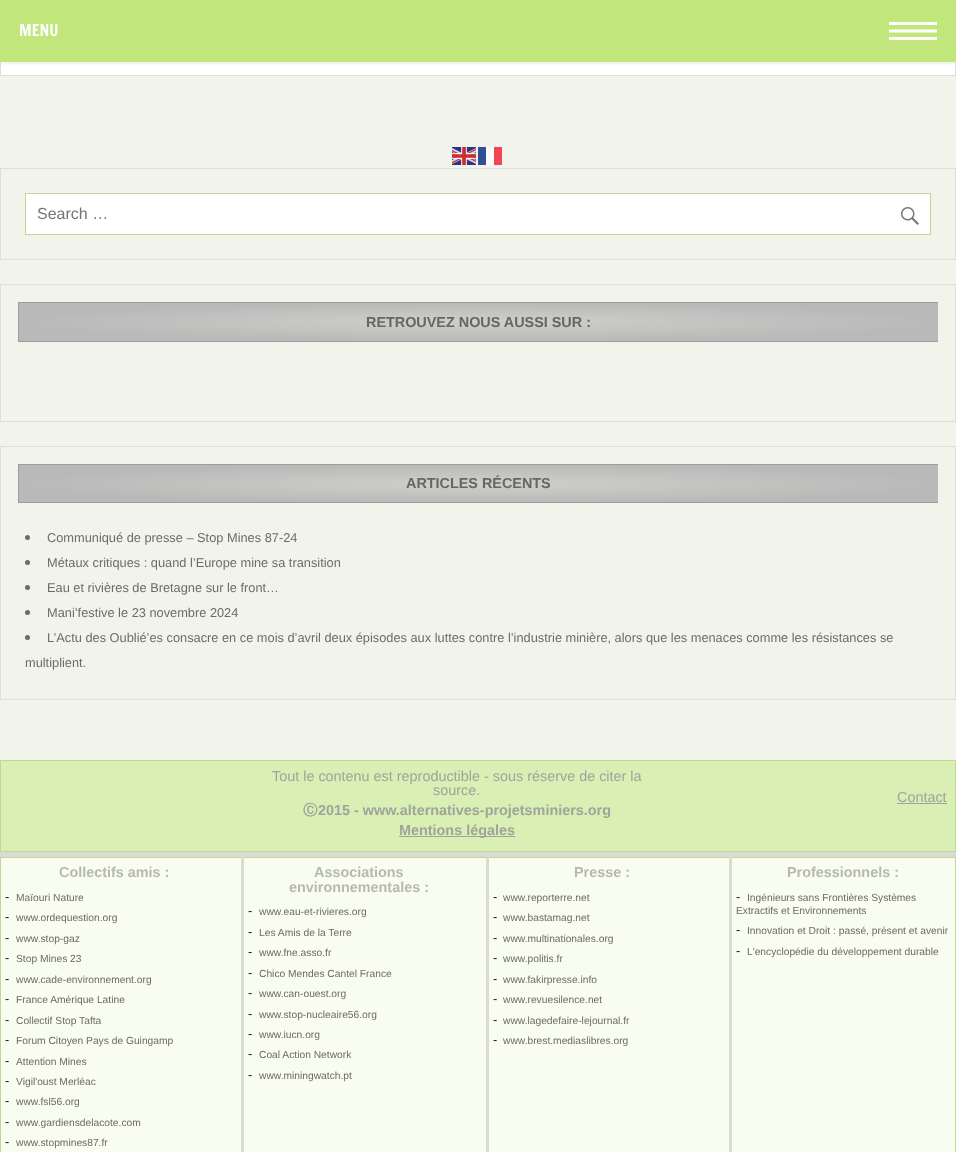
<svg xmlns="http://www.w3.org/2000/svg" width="956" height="1152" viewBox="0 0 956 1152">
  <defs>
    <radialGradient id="g1" gradientUnits="userSpaceOnUse" cx="0" cy="0" r="1" gradientTransform="matrix(460 0 0 19 479 322)"><stop offset="0" stop-color="rgb(207,208,202)"/><stop offset="1" stop-color="rgb(185,185,185)"/></radialGradient>
    <radialGradient id="g2" gradientUnits="userSpaceOnUse" cx="0" cy="0" r="1" gradientTransform="matrix(460 0 0 19 479 484)"><stop offset="0" stop-color="rgb(207,208,202)"/><stop offset="1" stop-color="rgb(185,185,185)"/></radialGradient>
  </defs>
  <rect width="100%" height="100%" fill="rgb(218,220,212)"/>
  <rect x="1" y="62" width="954" height="13" fill="rgb(255,255,255)"/>
  <rect x="0.5" y="-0.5" width="955" height="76" fill="none" stroke="rgb(221,221,221)"/>
  <rect x="0" y="0" width="956" height="62" fill="rgb(221,221,221)" filter="blur(2px)"/>
  <rect x="0" y="0" width="956" height="62" fill="rgb(192,230,124)"/>
  <text x="19" y="36" font-family="Francois One" font-size="16" fill="rgb(255,255,255)">MENU</text>
  <image x="889" y="22" width="24" height="18" href="pic1.png"/>
  <image x="913" y="22" width="24" height="18" href="pic1.png"/>
  <rect x="0" y="76" width="956" height="684" fill="rgb(242,244,235)"/>
  <image x="452" y="147" width="24" height="18" href="pic2.png"/>
  <rect x="478" y="147" width="8" height="18" fill="rgb(48,79,149)"/>
  <rect x="486" y="147" width="8" height="18" fill="rgb(252,253,251)"/>
  <rect x="494" y="147" width="8" height="18" fill="rgb(243,68,85)"/>
  <rect x="0.5" y="168.5" width="955" height="91" fill="none" stroke="rgb(221,221,221)"/>
  <rect x="25.5" y="193.5" width="905" height="41" fill="rgb(255,255,255)" stroke="rgb(192,215,151)"/>
  <text x="37" y="219" font-family="Liberation Sans" font-size="16" fill="rgb(117,117,117)">Search …</text>
  <image x="901" y="207" width="18" height="18" href="pic3.png"/>
  <rect x="0.5" y="284.5" width="955" height="137" fill="none" stroke="rgb(221,221,221)"/>
  <rect x="19" y="303" width="919" height="38" fill="url(#g1)"/>
  <rect x="18" y="302" width="920" height="1" fill="rgb(157,157,156)"/>
  <rect x="18" y="341" width="920" height="1" fill="rgb(157,157,156)"/>
  <rect x="18" y="302" width="1" height="40" fill="rgb(157,157,156)"/>
  <text x="366" y="327" font-family="Liberation Sans" font-size="14.4" font-weight="bold" fill="rgb(101,103,97)">RETROUVEZ NOUS AUSSI SUR :</text>
  <rect x="0.5" y="446.5" width="955" height="253" fill="none" stroke="rgb(221,221,221)"/>
  <rect x="19" y="465" width="919" height="37" fill="url(#g2)"/>
  <rect x="18" y="464" width="920" height="1" fill="rgb(157,157,156)"/>
  <rect x="18" y="502" width="920" height="1" fill="rgb(157,157,156)"/>
  <rect x="18" y="464" width="1" height="39" fill="rgb(157,157,156)"/>
  <text x="406" y="488" font-family="Liberation Sans" font-size="14.4" font-weight="bold" fill="rgb(101,103,97)">ARTICLES RÉCENTS</text>
  <circle cx="27.5" cy="537.5" r="2.5" fill="rgb(110,106,106)"/>
  <text x="47" y="542" font-family="Liberation Sans" font-size="12.8" fill="rgb(110,106,106)">Communiqué de presse – Stop Mines 87-24</text>
  <circle cx="27.5" cy="562.5" r="2.5" fill="rgb(110,106,106)"/>
  <text x="47" y="567" font-family="Liberation Sans" font-size="12.8" fill="rgb(110,106,106)">Métaux critiques : quand l’Europe mine sa transition</text>
  <circle cx="27.5" cy="587.5" r="2.5" fill="rgb(110,106,106)"/>
  <text x="47" y="592" font-family="Liberation Sans" font-size="12.8" fill="rgb(110,106,106)">Eau et rivières de Bretagne sur le front…</text>
  <circle cx="27.5" cy="612.5" r="2.5" fill="rgb(110,106,106)"/>
  <text x="47" y="617" font-family="Liberation Sans" font-size="12.8" fill="rgb(110,106,106)">Mani’festive le 23 novembre 2024</text>
  <circle cx="27.5" cy="637.5" r="2.5" fill="rgb(110,106,106)"/>
  <g font-family="Liberation Sans" font-size="12.8" fill="rgb(110,106,106)">
    <text x="47" y="642">L’Actu des Oublié’es consacre en ce mois d’avril deux épisodes aux luttes contre l’industrie minière, alors que les menaces comme les résistances se</text>
    <text x="25" y="667">multiplient.</text>
  </g>
  <rect x="0.5" y="760.5" width="955" height="91" fill="none" stroke="rgb(192,215,151)"/>
  <rect x="1" y="761" width="954" height="90" fill="rgb(217,239,179)"/>
  <g font-family="Liberation Sans" font-size="14.4" fill="rgb(161,163,157)">
    <text x="272" y="781">Tout le contenu est reproductible - sous réserve de citer la</text>
    <text x="433" y="795">source.</text>
  </g>
  <text x="303" y="815" font-family="WenQuanYi Zen Hei" font-size="14.4" font-weight="bold" fill="rgb(161,163,157)">Ⓒ</text>
  <text x="318" y="815" font-family="Liberation Sans" font-size="14.4" font-weight="bold" fill="rgb(161,163,157)">2015 - www.alternatives-projetsminiers.org</text>
  <rect x="399" y="836" width="116" height="1" fill="rgb(161,163,157)"/>
  <text x="399" y="835" font-family="Liberation Sans" font-size="14.4" font-weight="bold" fill="rgb(161,163,157)">Mentions légales</text>
  <text x="897" y="802" font-family="Liberation Sans" font-size="14.4" fill="rgb(161,163,157)">Contact</text>
  <rect x="897" y="803" width="50" height="1" fill="rgb(161,163,157)"/>
  <rect x="0.5" y="857.5" width="955" height="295" fill="rgb(248,253,239)" stroke="rgb(192,215,151)"/>
  <rect x="241" y="857" width="3" height="295" fill="rgb(218,220,212)"/>
  <text x="59" y="877" font-family="Liberation Sans" font-size="14.4" font-weight="bold" fill="rgb(183,184,180)">Collectifs amis :</text>
  <text x="5" y="901" font-family="Liberation Sans" font-size="12.8" fill="rgb(17,17,17)">-</text>
  <text x="16" y="901" font-family="Liberation Sans" font-size="10.25" fill="rgb(110,106,106)">Maïouri Nature</text>
  <text x="5" y="921" font-family="Liberation Sans" font-size="12.8" fill="rgb(17,17,17)">-</text>
  <text x="16" y="921" font-family="Liberation Sans" font-size="10.25" fill="rgb(110,106,106)">www.ordequestion.org</text>
  <text x="5" y="942" font-family="Liberation Sans" font-size="12.8" fill="rgb(17,17,17)">-</text>
  <text x="16" y="942" font-family="Liberation Sans" font-size="10.25" fill="rgb(110,106,106)">www.stop-gaz</text>
  <text x="5" y="962" font-family="Liberation Sans" font-size="12.8" fill="rgb(17,17,17)">-</text>
  <text x="16" y="962" font-family="Liberation Sans" font-size="10.25" fill="rgb(110,106,106)">Stop Mines 23</text>
  <text x="5" y="983" font-family="Liberation Sans" font-size="12.8" fill="rgb(17,17,17)">-</text>
  <text x="16" y="983" font-family="Liberation Sans" font-size="10.25" fill="rgb(110,106,106)">www.cade-environnement.org</text>
  <text x="5" y="1003" font-family="Liberation Sans" font-size="12.8" fill="rgb(17,17,17)">-</text>
  <text x="16" y="1003" font-family="Liberation Sans" font-size="10.25" fill="rgb(110,106,106)">France Amérique Latine</text>
  <text x="5" y="1024" font-family="Liberation Sans" font-size="12.8" fill="rgb(17,17,17)">-</text>
  <text x="16" y="1024" font-family="Liberation Sans" font-size="10.25" fill="rgb(110,106,106)">Collectif Stop Tafta</text>
  <text x="5" y="1044" font-family="Liberation Sans" font-size="12.8" fill="rgb(17,17,17)">-</text>
  <text x="16" y="1044" font-family="Liberation Sans" font-size="10.25" fill="rgb(110,106,106)">Forum Citoyen Pays de Guingamp</text>
  <text x="5" y="1065" font-family="Liberation Sans" font-size="12.8" fill="rgb(17,17,17)">-</text>
  <text x="16" y="1065" font-family="Liberation Sans" font-size="10.25" fill="rgb(110,106,106)">Attention Mines</text>
  <text x="5" y="1085" font-family="Liberation Sans" font-size="12.8" fill="rgb(17,17,17)">-</text>
  <text x="16" y="1085" font-family="Liberation Sans" font-size="10.25" fill="rgb(110,106,106)">Vigil'oust Merléac</text>
  <text x="5" y="1105" font-family="Liberation Sans" font-size="12.8" fill="rgb(17,17,17)">-</text>
  <text x="16" y="1105" font-family="Liberation Sans" font-size="10.25" fill="rgb(110,106,106)">www.fsl56.org</text>
  <text x="5" y="1126" font-family="Liberation Sans" font-size="12.8" fill="rgb(17,17,17)">-</text>
  <text x="16" y="1126" font-family="Liberation Sans" font-size="10.25" fill="rgb(110,106,106)">www.gardiensdelacote.com</text>
  <text x="5" y="1146" font-family="Liberation Sans" font-size="12.8" fill="rgb(17,17,17)">-</text>
  <text x="16" y="1146" font-family="Liberation Sans" font-size="10.25" fill="rgb(110,106,106)">www.stopmines87.fr</text>
  <rect x="486" y="857" width="3" height="295" fill="rgb(218,220,212)"/>
  <g font-family="Liberation Sans" font-size="14.4" font-weight="bold" fill="rgb(183,184,180)">
    <text x="314" y="877">Associations</text>
    <text x="289" y="892">environnementales :</text>
  </g>
  <text x="248" y="915" font-family="Liberation Sans" font-size="12.8" fill="rgb(17,17,17)">-</text>
  <text x="259" y="915" font-family="Liberation Sans" font-size="10.25" fill="rgb(110,106,106)">www.eau-et-rivieres.org</text>
  <text x="248" y="936" font-family="Liberation Sans" font-size="12.8" fill="rgb(17,17,17)">-</text>
  <text x="259" y="936" font-family="Liberation Sans" font-size="10.25" fill="rgb(110,106,106)">Les Amis de la Terre</text>
  <text x="248" y="956" font-family="Liberation Sans" font-size="12.8" fill="rgb(17,17,17)">-</text>
  <text x="259" y="956" font-family="Liberation Sans" font-size="10.25" fill="rgb(110,106,106)">www.fne.asso.fr</text>
  <text x="248" y="977" font-family="Liberation Sans" font-size="12.8" fill="rgb(17,17,17)">-</text>
  <text x="259" y="977" font-family="Liberation Sans" font-size="10.25" fill="rgb(110,106,106)">Chico Mendes Cantel France</text>
  <text x="248" y="997" font-family="Liberation Sans" font-size="12.8" fill="rgb(17,17,17)">-</text>
  <text x="259" y="997" font-family="Liberation Sans" font-size="10.25" fill="rgb(110,106,106)">www.can-ouest.org</text>
  <text x="248" y="1018" font-family="Liberation Sans" font-size="12.8" fill="rgb(17,17,17)">-</text>
  <text x="259" y="1018" font-family="Liberation Sans" font-size="10.25" fill="rgb(110,106,106)">www.stop-nucleaire56.org</text>
  <text x="248" y="1038" font-family="Liberation Sans" font-size="12.8" fill="rgb(17,17,17)">-</text>
  <text x="259" y="1038" font-family="Liberation Sans" font-size="10.25" fill="rgb(110,106,106)">www.iucn.org</text>
  <text x="248" y="1058" font-family="Liberation Sans" font-size="12.8" fill="rgb(17,17,17)">-</text>
  <text x="259" y="1058" font-family="Liberation Sans" font-size="10.25" fill="rgb(110,106,106)">Coal Action Network</text>
  <text x="248" y="1079" font-family="Liberation Sans" font-size="12.8" fill="rgb(17,17,17)">-</text>
  <text x="259" y="1079" font-family="Liberation Sans" font-size="10.25" fill="rgb(110,106,106)">www.miningwatch.pt</text>
  <rect x="729" y="857" width="3" height="295" fill="rgb(218,220,212)"/>
  <text x="574" y="877" font-family="Liberation Sans" font-size="14.4" font-weight="bold" fill="rgb(183,184,180)">Presse :</text>
  <text x="493" y="901" font-family="Liberation Sans" font-size="12.8" fill="rgb(17,17,17)">-</text>
  <text x="503" y="901" font-family="Liberation Sans" font-size="10.25" fill="rgb(110,106,106)">www.reporterre.net</text>
  <text x="493" y="921" font-family="Liberation Sans" font-size="12.8" fill="rgb(17,17,17)">-</text>
  <text x="503" y="921" font-family="Liberation Sans" font-size="10.25" fill="rgb(110,106,106)">www.bastamag.net</text>
  <text x="493" y="942" font-family="Liberation Sans" font-size="12.8" fill="rgb(17,17,17)">-</text>
  <text x="503" y="942" font-family="Liberation Sans" font-size="10.25" fill="rgb(110,106,106)">www.multinationales.org</text>
  <text x="493" y="962" font-family="Liberation Sans" font-size="12.8" fill="rgb(17,17,17)">-</text>
  <text x="503" y="962" font-family="Liberation Sans" font-size="10.25" fill="rgb(110,106,106)">www.politis.fr</text>
  <text x="493" y="983" font-family="Liberation Sans" font-size="12.8" fill="rgb(17,17,17)">-</text>
  <text x="503" y="983" font-family="Liberation Sans" font-size="10.25" fill="rgb(110,106,106)">www.fakirpresse.info</text>
  <text x="493" y="1003" font-family="Liberation Sans" font-size="12.8" fill="rgb(17,17,17)">-</text>
  <text x="503" y="1003" font-family="Liberation Sans" font-size="10.25" fill="rgb(110,106,106)">www.revuesilence.net</text>
  <text x="493" y="1024" font-family="Liberation Sans" font-size="12.8" fill="rgb(17,17,17)">-</text>
  <text x="503" y="1024" font-family="Liberation Sans" font-size="10.25" fill="rgb(110,106,106)">www.lagedefaire-lejournal.fr</text>
  <text x="493" y="1044" font-family="Liberation Sans" font-size="12.8" fill="rgb(17,17,17)">-</text>
  <text x="503" y="1044" font-family="Liberation Sans" font-size="10.25" fill="rgb(110,106,106)">www.brest.mediaslibres.org</text>
  <text x="787" y="877" font-family="Liberation Sans" font-size="14.4" font-weight="bold" fill="rgb(183,184,180)">Professionnels :</text>
  <text x="736" y="901" font-family="Liberation Sans" font-size="12.8" fill="rgb(17,17,17)">-</text>
  <g font-family="Liberation Sans" font-size="10.25" fill="rgb(110,106,106)">
    <text x="747" y="901">Ingénieurs sans Frontières Systèmes</text>
    <text x="736" y="914">Extractifs et Environnements</text>
  </g>
  <text x="736" y="934" font-family="Liberation Sans" font-size="12.8" fill="rgb(17,17,17)">-</text>
  <text x="747" y="934" font-family="Liberation Sans" font-size="10.25" fill="rgb(110,106,106)">Innovation et Droit : passé, présent et avenir</text>
  <text x="736" y="955" font-family="Liberation Sans" font-size="12.8" fill="rgb(17,17,17)">-</text>
  <text x="747" y="955" font-family="Liberation Sans" font-size="10.25" fill="rgb(110,106,106)">L'encyclopédie du développement durable</text>
</svg>
